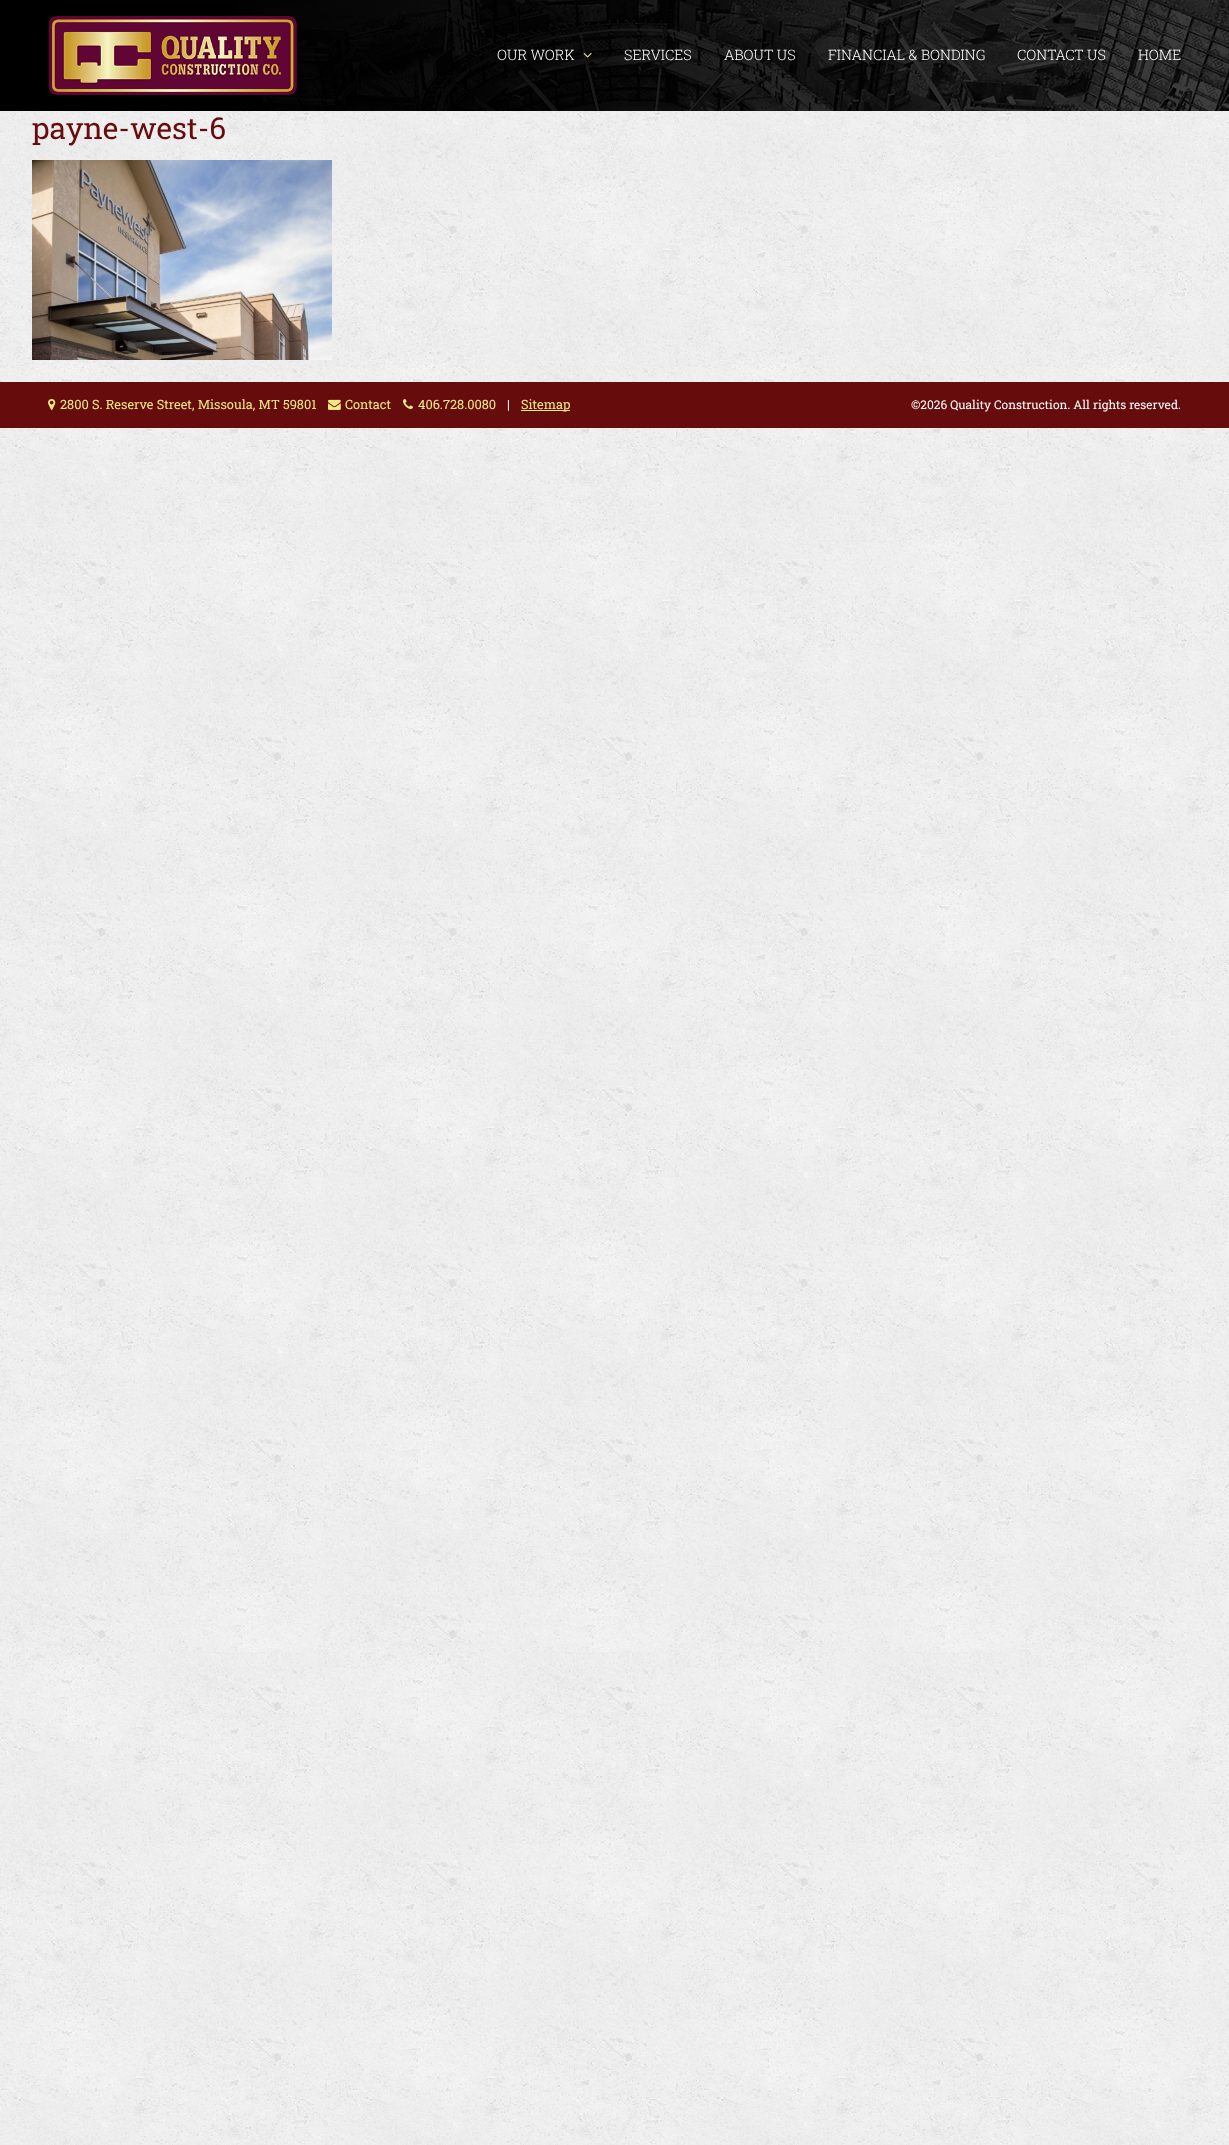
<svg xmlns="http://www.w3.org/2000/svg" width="1229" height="2145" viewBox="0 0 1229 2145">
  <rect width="100%" height="100%" fill="rgb(255,255,255)"/>
  <image x="0" y="111" width="1229" height="2034" href="pic1.png"/>
  <rect x="0" y="0" width="1229" height="111" fill="rgb(0,0,0)"/>
  <image x="239" y="0" width="990" height="111" href="pic2.png"/>
  <image x="48" y="16" width="249" height="79" href="pic3.png"/>
  <text x="497" y="60" font-family="Roboto Slab" font-size="14.4" font-weight="300" fill="rgb(255,255,255)">OUR WORK</text>
  <image x="583" y="53" width="9" height="5" href="pic4.png"/>
  <g font-family="Roboto Slab" font-size="14.4" font-weight="300" fill="rgb(255,255,255)">
    <text x="624" y="60">SERVICES</text>
    <text x="724" y="60">ABOUT US</text>
    <text x="828" y="60">FINANCIAL &amp; BONDING</text>
    <text x="1017" y="60">CONTACT US</text>
    <text x="1138" y="60">HOME</text>
  </g>
  <text x="32" y="139" font-family="Roboto Slab" font-size="30" fill="rgb(103,12,13)">payne-west-6</text>
  <image x="32" y="160" width="300" height="200" href="pic5.png"/>
  <rect x="0" y="382" width="1229" height="46" fill="rgb(103,12,13)"/>
  <image x="48" y="399" width="8" height="11" href="pic6.png"/>
  <text x="60" y="409" font-family="Roboto Slab" font-size="12.8" fill="rgb(239,235,128)">2800 S. Reserve Street, Missoula, MT 59801</text>
  <image x="328" y="399" width="13" height="11" href="pic7.png"/>
  <text x="345" y="409" font-family="Roboto Slab" font-size="12.8" fill="rgb(239,235,128)">Contact</text>
  <image x="403" y="399" width="10" height="10" href="pic8.png"/>
  <text x="418" y="409" font-family="Roboto Slab" font-size="12.8" fill="rgb(239,235,128)">406.728.0080</text>
  <text x="507" y="409" font-family="Roboto Slab" font-size="12.8" fill="rgb(255,255,255)">|</text>
  <rect x="521" y="410" width="49" height="1" fill="rgb(239,235,128)"/>
  <text x="521" y="409" font-family="Roboto Slab" font-size="12.8" fill="rgb(239,235,128)">Sitemap</text>
  <text x="911" y="409" font-family="Roboto Slab" font-size="12" fill="rgb(255,255,255)">©2026 Quality Construction. All rights reserved.</text>
</svg>
